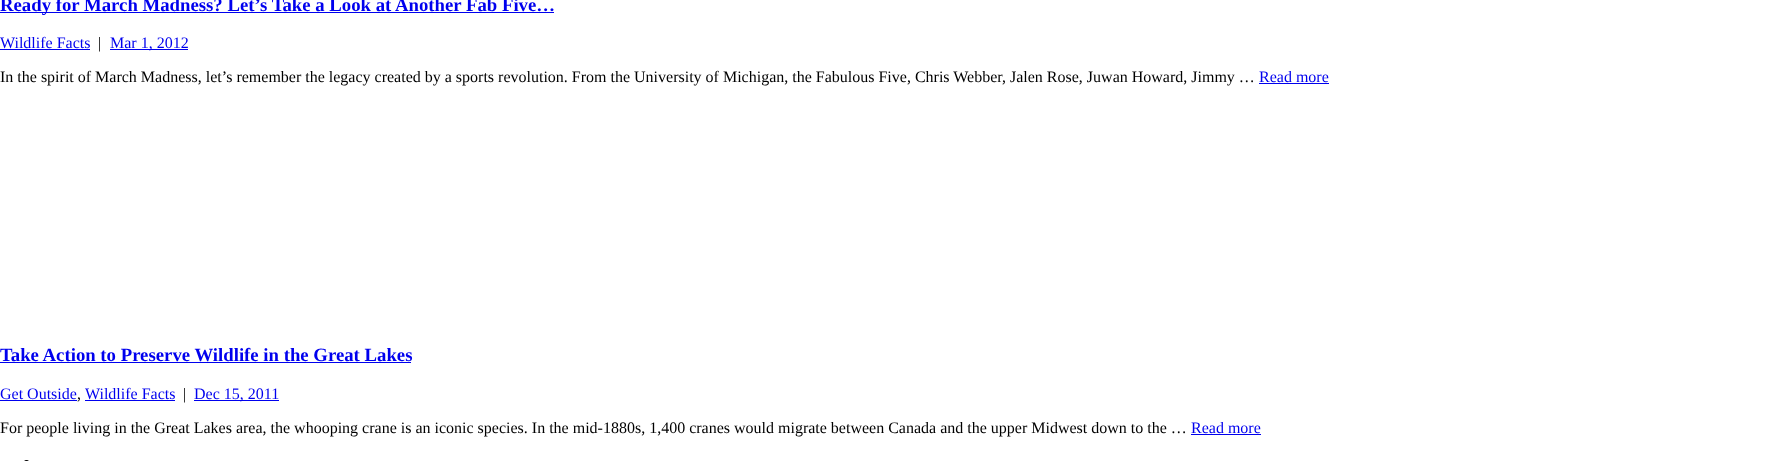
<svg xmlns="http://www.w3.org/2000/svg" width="1790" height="461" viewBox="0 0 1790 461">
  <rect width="100%" height="100%" fill="rgb(255,255,255)"/>
  <rect x="0" y="12" width="554" height="1" fill="rgb(0,0,238)"/>
  <text x="0" y="11" font-family="Liberation Serif" font-size="18.75" font-weight="bold" fill="rgb(0,0,238)">Ready for March Madness? Let’s Take a Look at Another Fab Five…</text>
  <text x="0" y="48" font-family="Liberation Serif" font-size="16" fill="rgb(0,0,238)">Wildlife Facts</text>
  <rect x="0" y="49" width="90" height="1" fill="rgb(0,0,238)"/>
  <text x="98" y="48" font-family="Liberation Serif" font-size="16" fill="rgb(0,0,0)">|</text>
  <rect x="110" y="49" width="78" height="1" fill="rgb(0,0,238)"/>
  <text x="110" y="48" font-family="Liberation Serif" font-size="16" fill="rgb(0,0,238)">Mar 1, 2012</text>
  <text x="0" y="82" font-family="Liberation Serif" font-size="16" fill="rgb(0,0,0)">In the spirit of March Madness, let’s remember the legacy created by a sports revolution. From the University of Michigan, the Fabulous Five, Chris Webber, Jalen Rose, Juwan Howard, Jimmy …</text>
  <text x="1259" y="82" font-family="Liberation Serif" font-size="16" fill="rgb(0,0,238)">Read more</text>
  <rect x="1259" y="83" width="70" height="1" fill="rgb(0,0,238)"/>
  <text x="0" y="361" font-family="Liberation Serif" font-size="18.75" font-weight="bold" fill="rgb(0,0,238)">Take Action to Preserve Wildlife in the Great Lakes</text>
  <rect x="0" y="362" width="411" height="1" fill="rgb(0,0,238)"/>
  <text x="0" y="399" font-family="Liberation Serif" font-size="16" fill="rgb(0,0,238)">Get Outside</text>
  <text x="77" y="399" font-family="Liberation Serif" font-size="16" fill="rgb(0,0,0)">,</text>
  <rect x="0" y="400" width="77" height="1" fill="rgb(0,0,238)"/>
  <rect x="85" y="400" width="90" height="1" fill="rgb(0,0,238)"/>
  <text x="85" y="399" font-family="Liberation Serif" font-size="16" fill="rgb(0,0,238)">Wildlife Facts</text>
  <text x="183" y="399" font-family="Liberation Serif" font-size="16" fill="rgb(0,0,0)">|</text>
  <rect x="194" y="400" width="85" height="1" fill="rgb(0,0,238)"/>
  <text x="194" y="399" font-family="Liberation Serif" font-size="16" fill="rgb(0,0,238)">Dec 15, 2011</text>
  <text x="0" y="433" font-family="Liberation Serif" font-size="16" fill="rgb(0,0,0)">For people living in the Great Lakes area, the whooping crane is an iconic species. In the mid-1880s, 1,400 cranes would migrate between Canada and the upper Midwest down to the …</text>
  <text x="1191" y="433" font-family="Liberation Serif" font-size="16" fill="rgb(0,0,238)">Read more</text>
  <rect x="1191" y="434" width="70" height="1" fill="rgb(0,0,238)"/>
  <rect x="24" y="460" width="5" height="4" rx="2.5" fill="rgb(0,0,0)"/>
</svg>
